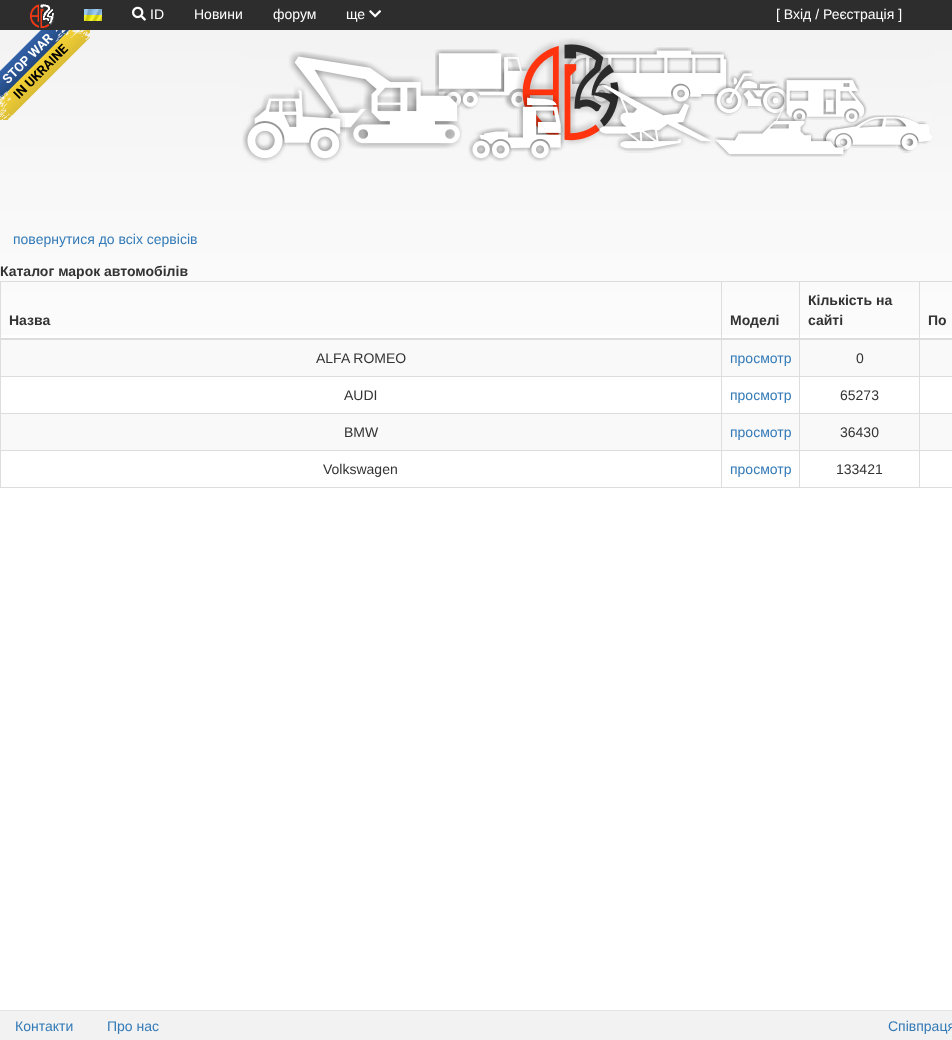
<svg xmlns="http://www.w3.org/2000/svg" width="952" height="1040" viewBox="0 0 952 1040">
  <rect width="100%" height="100%" fill="rgb(255,255,255)"/>
  <image x="0" y="30" width="952" height="305" href="pic1.png"/>
  <rect x="0" y="0" width="952" height="30" fill="rgb(45,45,45)"/>
  <image x="30" y="4" width="24" height="24" href="pic2.png"/>
  <image x="84" y="9" width="18" height="12" href="pic3.png"/>
  <image x="132" y="6" width="14" height="15" href="pic4.png"/>
  <g font-family="Liberation Sans" font-size="14" fill="rgb(255,255,255)">
    <text x="150" y="19">ID</text>
    <text x="194" y="19">Новини</text>
    <text x="273" y="19">форум</text>
    <text x="346" y="19">ще</text>
  </g>
  <image x="369" y="10" width="12" height="8" href="pic5.png"/>
  <text x="776" y="19" font-family="Liberation Sans" font-size="14" fill="rgb(255,255,255)">[ Вхід / Реєстрація ]</text>
  <image x="242" y="37" width="690" height="126" href="pic6.png"/>
  <text x="13" y="244" font-family="Liberation Sans" font-size="14" fill="rgb(51,122,183)">повернутися до всіх сервісів</text>
  <text x="0" y="276" font-family="Liberation Sans" font-size="14" font-weight="bold" fill="rgb(51,51,51)">Каталог марок автомобілів</text>
  <rect x="0" y="281" width="952" height="1" fill="rgb(221,221,221)"/>
  <rect x="0" y="487" width="952" height="1" fill="rgb(221,221,221)"/>
  <rect x="0" y="281" width="1" height="207" fill="rgb(221,221,221)"/>
  <g font-family="Liberation Sans" font-size="14" font-weight="bold" fill="rgb(51,51,51)">
    <text x="9" y="325">Назва</text>
    <text x="730" y="325">Моделі</text>
    <text>
      <tspan x="808" y="305">Кількість на</tspan>
      <tspan x="808" y="325">сайті</tspan>
    </text>
  </g>
  <rect x="1" y="340" width="951" height="36" fill="rgb(249,249,249)"/>
  <rect x="919" y="376" width="33" height="1" fill="rgb(221,221,221)"/>
  <rect x="919" y="413" width="33" height="1" fill="rgb(221,221,221)"/>
  <rect x="1" y="414" width="951" height="36" fill="rgb(249,249,249)"/>
  <rect x="919" y="450" width="33" height="1" fill="rgb(221,221,221)"/>
  <rect x="919" y="450" width="1" height="38" fill="rgb(221,221,221)"/>
  <rect x="799" y="450" width="121" height="1" fill="rgb(221,221,221)"/>
  <rect x="919" y="413" width="1" height="38" fill="rgb(221,221,221)"/>
  <rect x="799" y="413" width="121" height="1" fill="rgb(221,221,221)"/>
  <rect x="919" y="376" width="1" height="38" fill="rgb(221,221,221)"/>
  <rect x="799" y="376" width="121" height="1" fill="rgb(221,221,221)"/>
  <rect x="799" y="450" width="1" height="38" fill="rgb(221,221,221)"/>
  <rect x="721" y="450" width="79" height="1" fill="rgb(221,221,221)"/>
  <rect x="799" y="413" width="1" height="38" fill="rgb(221,221,221)"/>
  <rect x="721" y="413" width="79" height="1" fill="rgb(221,221,221)"/>
  <rect x="799" y="376" width="1" height="38" fill="rgb(221,221,221)"/>
  <rect x="721" y="376" width="79" height="1" fill="rgb(221,221,221)"/>
  <rect x="721" y="450" width="1" height="38" fill="rgb(221,221,221)"/>
  <rect x="0" y="450" width="722" height="1" fill="rgb(221,221,221)"/>
  <rect x="721" y="413" width="1" height="38" fill="rgb(221,221,221)"/>
  <rect x="0" y="413" width="722" height="1" fill="rgb(221,221,221)"/>
  <rect x="721" y="376" width="1" height="38" fill="rgb(221,221,221)"/>
  <rect x="0" y="376" width="722" height="1" fill="rgb(221,221,221)"/>
  <rect x="721" y="281" width="1" height="96" fill="rgb(221,221,221)"/>
  <rect x="799" y="281" width="1" height="96" fill="rgb(221,221,221)"/>
  <rect x="919" y="281" width="1" height="96" fill="rgb(221,221,221)"/>
  <rect x="0" y="338" width="952" height="2" fill="rgb(221,221,221)"/>
  <text x="928" y="325" font-family="Liberation Sans" font-size="14" font-weight="bold" fill="rgb(51,51,51)">По</text>
  <text x="316" y="363" font-family="Liberation Sans" font-size="14" fill="rgb(51,51,51)">ALFA ROMEO</text>
  <text x="730" y="363" font-family="Liberation Sans" font-size="14" fill="rgb(51,122,183)">просмотр</text>
  <g font-family="Liberation Sans" font-size="14" fill="rgb(51,51,51)">
    <text x="856" y="363">0</text>
    <text x="344" y="400">AUDI</text>
  </g>
  <text x="730" y="400" font-family="Liberation Sans" font-size="14" fill="rgb(51,122,183)">просмотр</text>
  <g font-family="Liberation Sans" font-size="14" fill="rgb(51,51,51)">
    <text x="840" y="400">65273</text>
    <text x="344" y="437">BMW</text>
  </g>
  <text x="730" y="437" font-family="Liberation Sans" font-size="14" fill="rgb(51,122,183)">просмотр</text>
  <g font-family="Liberation Sans" font-size="14" fill="rgb(51,51,51)">
    <text x="840" y="437">36430</text>
    <text x="323" y="474">Volkswagen</text>
  </g>
  <text x="730" y="474" font-family="Liberation Sans" font-size="14" fill="rgb(51,122,183)">просмотр</text>
  <text x="836" y="474" font-family="Liberation Sans" font-size="14" fill="rgb(51,51,51)">133421</text>
  <rect x="0" y="1011" width="952" height="29" fill="rgb(242,242,242)"/>
  <rect x="0" y="1010" width="952" height="1" fill="rgb(228,228,228)"/>
  <g font-family="Liberation Sans" font-size="14" fill="rgb(51,122,183)">
    <text x="15" y="1031">Контакти</text>
    <text x="107" y="1031">Про нас</text>
    <text x="888" y="1031">Співпраця</text>
  </g>
  <image x="0" y="30" width="90" height="90" href="pic7.png"/>
</svg>
